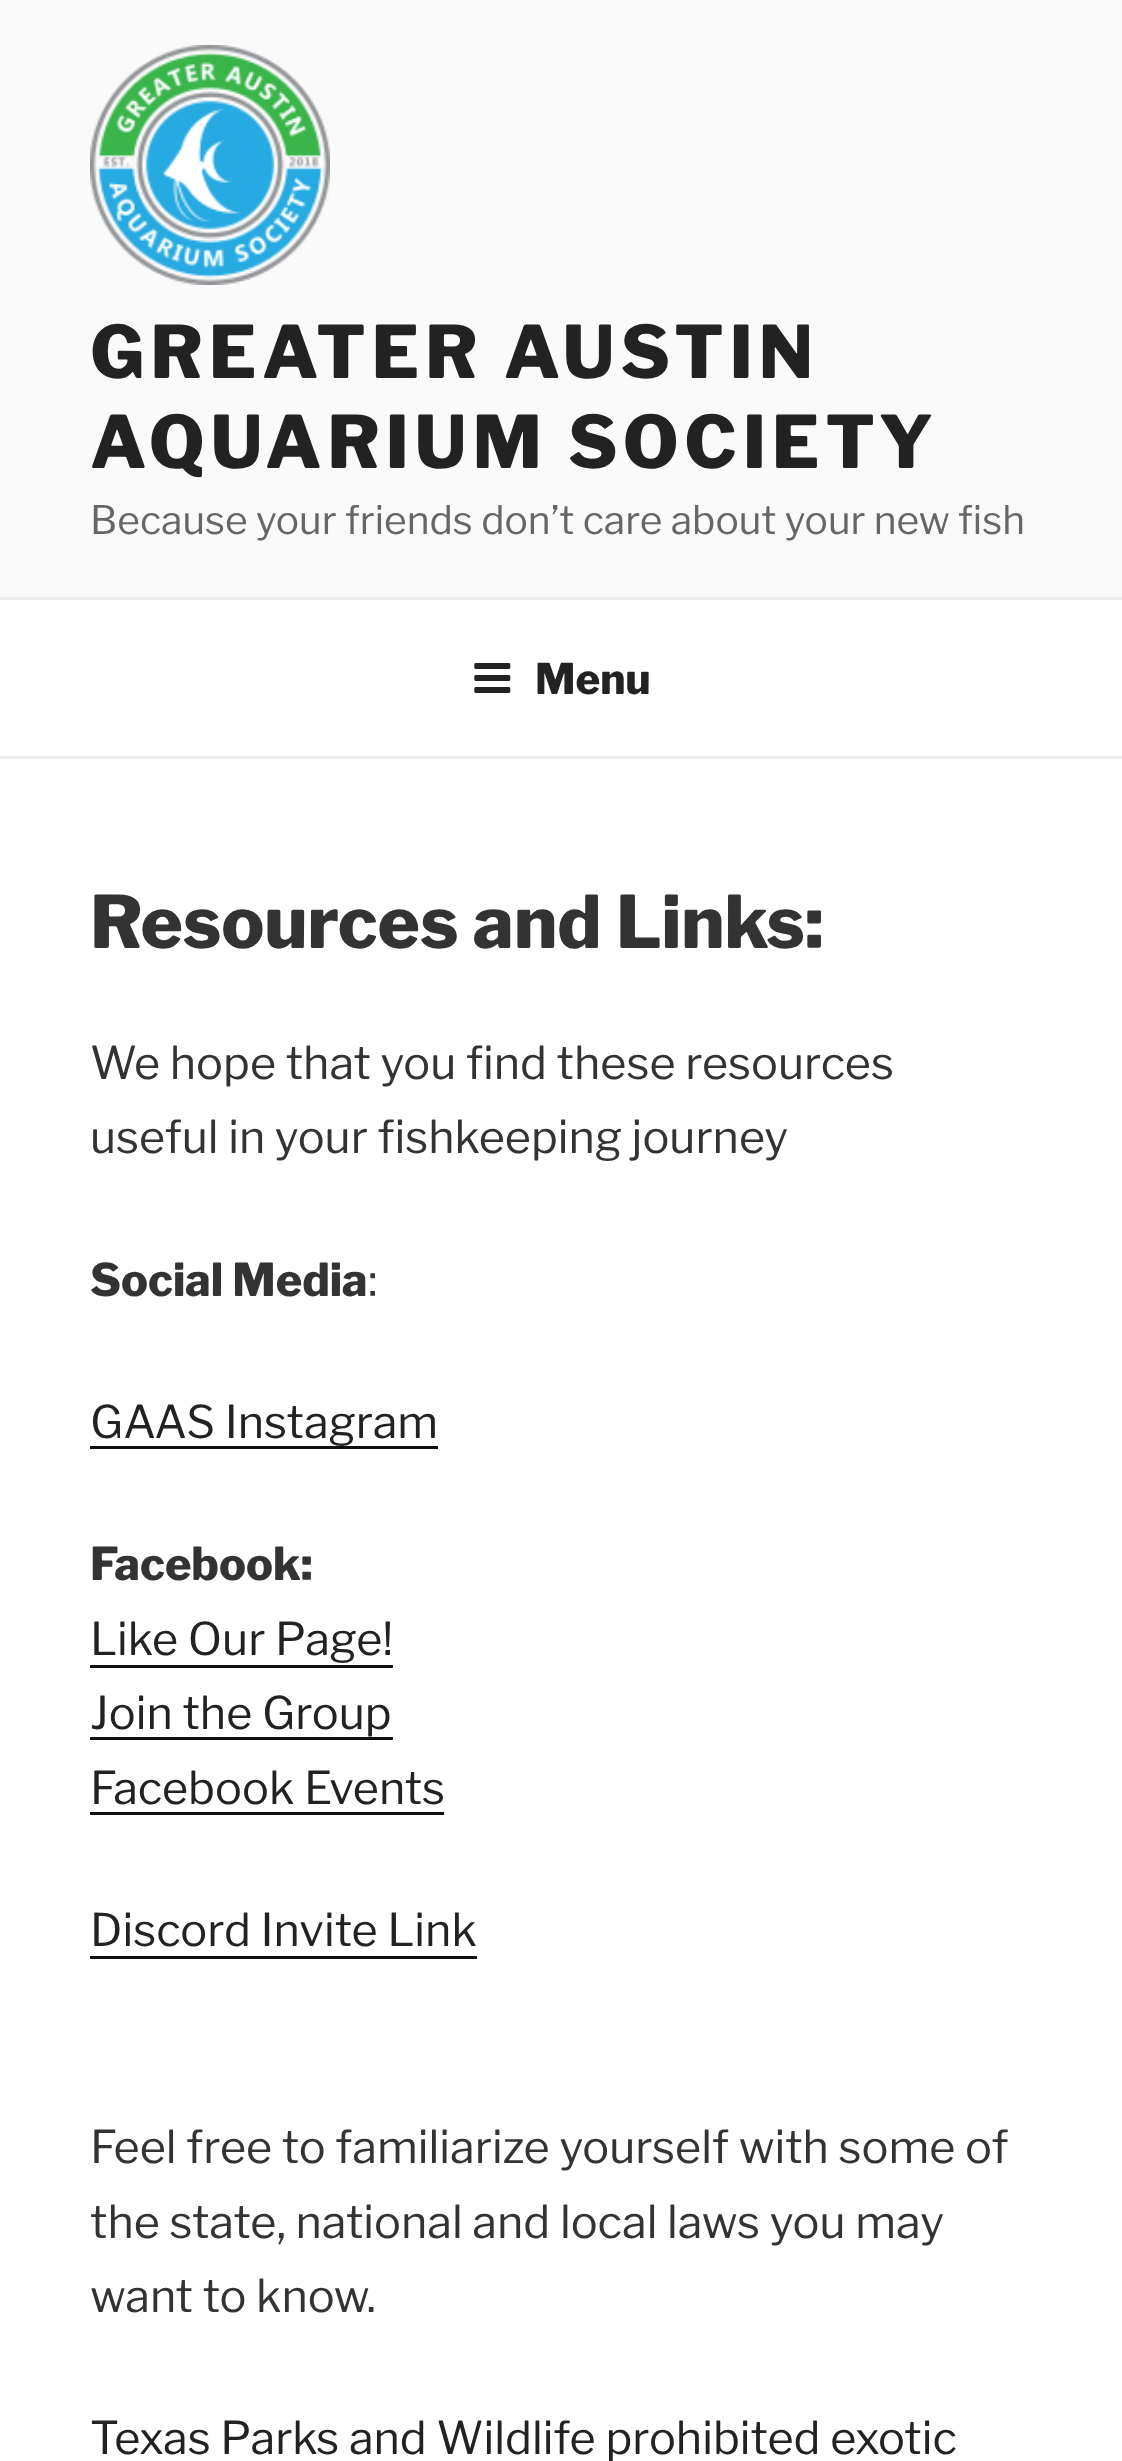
<svg xmlns="http://www.w3.org/2000/svg" width="1122" height="2461" viewBox="0 0 1122 2461">
  <rect width="100%" height="100%" fill="rgb(255,255,255)"/>
  <rect x="0" y="0" width="1122" height="597" fill="rgb(250,250,250)"/>
  <image x="90" y="45" width="240" height="240" href="pic1.png"/>
  <g font-family="Libre Franklin" font-size="72" font-weight="100" letter-spacing="5.75" fill="rgb(34,34,34)">
    <text>
      <tspan x="90" y="378">GREATER AUSTIN</tspan>
      <tspan x="90" y="468">AQUARIUM SOCIETY</tspan>
    </text>
  </g>
  <text x="90" y="534" font-family="'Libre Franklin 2'" font-size="39" font-weight="100" fill="rgb(102,102,102)">Because your friends don’t care about your new fish</text>
  <rect x="0" y="597" width="1122" height="3" fill="rgb(238,238,238)"/>
  <rect x="0" y="756" width="1122" height="3" fill="rgb(238,238,238)"/>
  <image x="474" y="663" width="37" height="30" href="pic2.png"/>
  <text x="535" y="694" font-family="Libre Franklin" font-size="42" font-weight="100" fill="rgb(34,34,34)">Menu</text>
  <text x="90" y="948" font-family="Libre Franklin" font-size="72" font-weight="100" fill="rgb(51,51,51)">Resources and Links:</text>
  <g font-family="'Libre Franklin 2'" font-size="45" font-weight="100" fill="rgb(51,51,51)">
    <text>
      <tspan x="90" y="1079">We hope that you find these resources</tspan>
      <tspan x="90" y="1153">useful in your fishkeeping journey</tspan>
    </text>
  </g>
  <text x="90" y="1296" font-family="Libre Franklin" font-size="45" font-weight="100" fill="rgb(51,51,51)">Social Media</text>
  <text x="368" y="1296" font-family="'Libre Franklin 2'" font-size="45" font-weight="100" fill="rgb(51,51,51)">:</text>
  <text x="90" y="1438" font-family="'Libre Franklin 2'" font-size="45" font-weight="100" fill="rgb(34,34,34)">GAAS Instagram</text>
  <rect x="90" y="1446" width="348" height="3" fill="rgb(15,15,15)"/>
  <text x="90" y="1580" font-family="Libre Franklin" font-size="45" font-weight="100" fill="rgb(51,51,51)">Facebook:</text>
  <text x="90" y="1655" font-family="'Libre Franklin 2'" font-size="45" font-weight="100" fill="rgb(34,34,34)">Like Our Page!</text>
  <rect x="90" y="1665" width="303" height="3" fill="rgb(15,15,15)"/>
  <text x="90" y="1729" font-family="'Libre Franklin 2'" font-size="45" font-weight="100" fill="rgb(34,34,34)">Join the Group</text>
  <rect x="90" y="1737" width="303" height="3" fill="rgb(15,15,15)"/>
  <text x="90" y="1804" font-family="'Libre Franklin 2'" font-size="45" font-weight="100" fill="rgb(34,34,34)">Facebook Events</text>
  <rect x="90" y="1812" width="354" height="3" fill="rgb(15,15,15)"/>
  <text x="90" y="1946" font-family="'Libre Franklin 2'" font-size="45" font-weight="100" fill="rgb(34,34,34)">Discord Invite Link</text>
  <rect x="90" y="1956" width="387" height="3" fill="rgb(15,15,15)"/>
  <g font-family="'Libre Franklin 2'" font-size="45" font-weight="100" fill="rgb(51,51,51)">
    <text>
      <tspan x="90" y="2163">Feel free to familiarize yourself with some of</tspan>
      <tspan x="90" y="2238">the state, national and local laws you may</tspan>
      <tspan x="90" y="2312">want to know.</tspan>
    </text>
  </g>
  <text x="90" y="2454" font-family="'Libre Franklin 2'" font-size="45" font-weight="100" fill="rgb(34,34,34)">Texas Parks and Wildlife prohibited exotic</text>
</svg>
